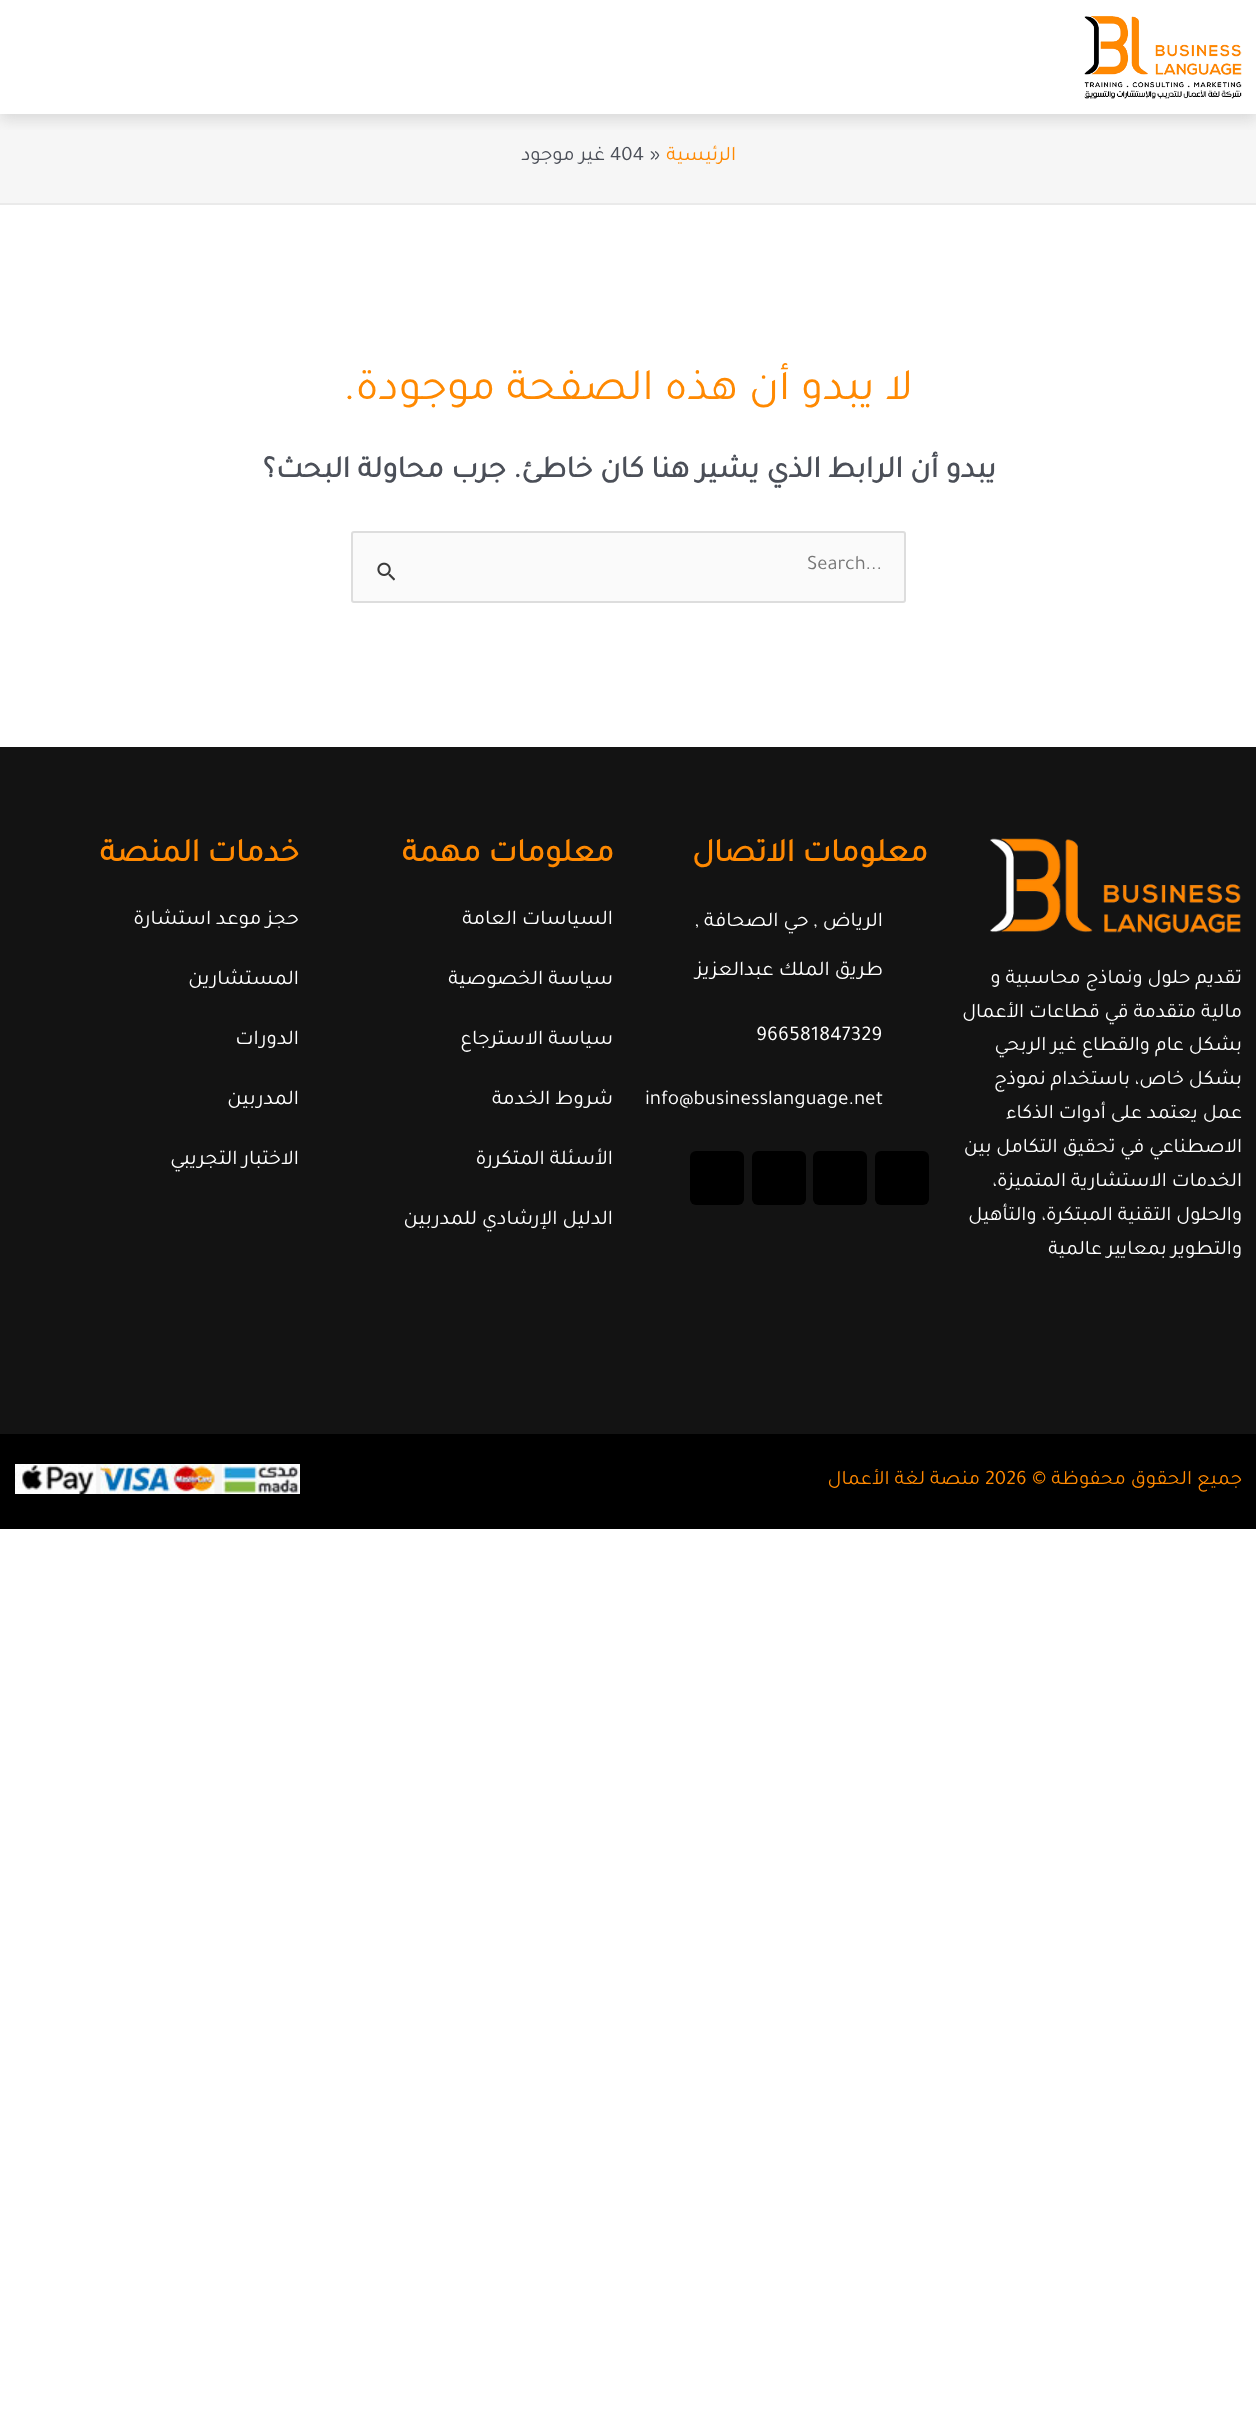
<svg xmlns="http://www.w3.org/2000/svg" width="1256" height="2436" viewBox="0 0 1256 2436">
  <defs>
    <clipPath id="clip1"><rect x="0" y="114" width="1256" height="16"/></clipPath>
  </defs>
  <rect width="100%" height="100%" fill="rgb(255,255,255)"/>
  <rect x="0" y="114" width="1256" height="89" fill="rgb(246,246,246)"/>
  <g clip-path="url(#clip1)">
    <rect x="0" y="5" width="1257" height="114" fill="rgba(138,138,138,0.28)" filter="blur(7.5px)"/>
  </g>
  <image x="1084" y="16" width="158" height="83" href="pic1.png"/>
  <rect x="0" y="203" width="1256" height="2" fill="rgb(234,234,234)"/>
  <text x="736" y="160" font-family="Tajawal" font-size="20.5" direction="rtl" fill="rgb(255,137,1)">الرئيسية</text>
  <g font-family="Tajawal" font-size="20.5" fill="rgb(75,79,88)">
    <text x="650" y="160">»</text>
    <text x="610" y="160">404</text>
  </g>
  <text x="605" y="160" font-family="Tajawal" font-size="20.5" direction="rtl" fill="rgb(75,79,88)">غير موجود</text>
  <text x="913" y="399" font-family="Tajawal" font-size="45" direction="rtl" fill="rgb(255,137,1)">لا يبدو أن هذه الصفحة موجودة.</text>
  <text x="996" y="477" font-family="Tajawal" font-size="30.75" font-weight="bold" direction="rtl" fill="rgb(75,79,88)">يبدو أن الرابط الذي يشير هنا كان خاطئ. جرب محاولة البحث؟</text>
  <rect x="352" y="532" width="553" height="70" rx="2" fill="rgb(250,250,250)" stroke="rgb(221,221,221)" stroke-width="2"/>
  <text x="807" y="569" font-family="Tajawal" font-size="20.5" fill="rgb(117,117,117)">Search...</text>
  <image x="377" y="562" width="18" height="19" href="pic2.png"/>
  <rect x="0" y="747" width="1256" height="687" fill="rgb(19,19,19)"/>
  <image x="990" y="838" width="251" height="95" href="pic3.png"/>
  <g font-family="Tajawal" font-size="20.5" direction="rtl" fill="rgb(255,255,255)">
    <text>
      <tspan x="1242" y="983">تقديم حلول ونماذج محاسبية و</tspan>
      <tspan x="1242" y="1017">مالية متقدمة قي قطاعات الأعمال</tspan>
      <tspan x="1242" y="1050">بشكل عام والقطاع غير الربحي</tspan>
      <tspan x="1242" y="1084">بشكل خاص، باستخدام نموذج</tspan>
      <tspan x="1242" y="1118">عمل يعتمد على أدوات الذكاء</tspan>
      <tspan x="1242" y="1152">الاصطناعي في تحقيق التكامل بين</tspan>
      <tspan x="1242" y="1186">الخدمات الاستشارية المتميزة،</tspan>
      <tspan x="1242" y="1220">والحلول التقنية المبتكرة، والتأهيل</tspan>
      <tspan x="1242" y="1254">والتطوير بمعايير عالمية</tspan>
    </text>
  </g>
  <text x="928" y="861" font-family="Tajawal" font-size="32.75" font-weight="bold" direction="rtl" fill="rgb(255,137,1)">معلومات الاتصال</text>
  <g font-family="Tajawal" font-size="21" direction="rtl" fill="rgb(255,255,255)">
    <text x="883" y="926">الرياض , حي الصحافة ,</text>
    <text x="883" y="975">طريق الملك عبدالعزيز</text>
  </g>
  <g font-family="Tajawal" font-size="21" fill="rgb(255,255,255)">
    <text x="756" y="1040">966581847329</text>
    <text x="645" y="1104">info@businesslanguage.net</text>
  </g>
  <rect x="875" y="1151" width="54" height="54" rx="6" fill="rgb(0,0,0)"/>
  <rect x="813" y="1151" width="54" height="54" rx="6" fill="rgb(0,0,0)"/>
  <rect x="752" y="1151" width="54" height="54" rx="6" fill="rgb(0,0,0)"/>
  <rect x="690" y="1151" width="54" height="54" rx="6" fill="rgb(0,0,0)"/>
  <text x="614" y="861" font-family="Tajawal" font-size="32.75" font-weight="bold" direction="rtl" fill="rgb(255,137,1)">معلومات مهمة</text>
  <g font-family="Tajawal" font-size="21" direction="rtl" fill="rgb(255,255,255)">
    <text x="613" y="924">السياسات العامة</text>
    <text x="613" y="984">سياسة الخصوصية</text>
    <text x="613" y="1044">سياسة الاسترجاع</text>
    <text x="613" y="1104">شروط الخدمة</text>
    <text x="613" y="1164">الأسئلة المتكررة</text>
    <text x="613" y="1224">الدليل الإرشادي للمدربين</text>
  </g>
  <text x="299" y="861" font-family="Tajawal" font-size="32.75" font-weight="bold" direction="rtl" fill="rgb(255,137,1)">خدمات المنصة</text>
  <g font-family="Tajawal" font-size="21" direction="rtl" fill="rgb(255,255,255)">
    <text x="299" y="924">حجز موعد استشارة</text>
    <text x="299" y="984">المستشارين</text>
    <text x="299" y="1044">الدورات</text>
    <text x="299" y="1104">المدربين</text>
    <text x="299" y="1164">الاختبار التجريبي</text>
  </g>
  <rect x="0" y="1434" width="1256" height="95" fill="rgb(0,0,0)"/>
  <text x="1242" y="1484" font-family="Tajawal" font-size="20.5" direction="rtl" fill="rgb(255,137,1)">جميع الحقوق محفوظة ©</text>
  <text x="985" y="1484" font-family="Tajawal" font-size="20.5" fill="rgb(255,137,1)">2026</text>
  <text x="980" y="1484" font-family="Tajawal" font-size="20.5" direction="rtl" fill="rgb(255,137,1)">منصة لغة الأعمال</text>
  <image x="15" y="1464" width="285" height="30" href="pic4.png"/>
</svg>
